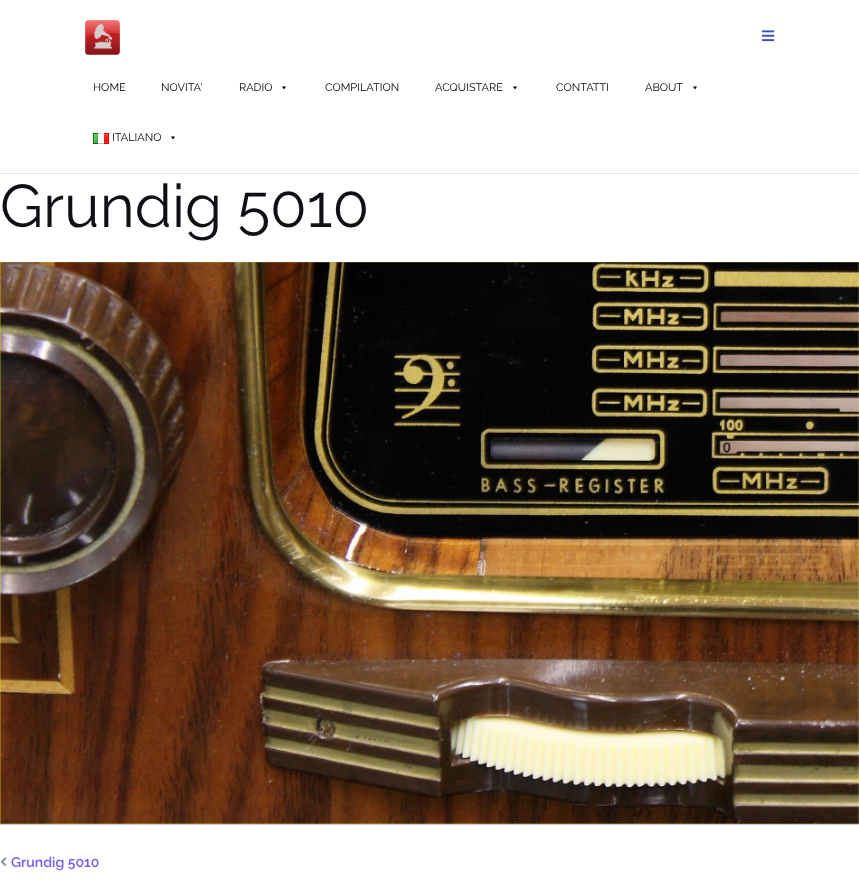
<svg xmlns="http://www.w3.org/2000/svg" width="859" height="888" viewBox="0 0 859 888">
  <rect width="100%" height="100%" fill="rgb(255,255,255)"/>
  <rect x="0" y="173" width="859" height="1" fill="rgb(230,230,230)"/>
  <image x="85" y="20" width="35" height="35" href="pic1.png"/>
  <image x="762" y="30" width="13" height="12" href="pic2.png"/>
  <g font-family="Raleway" font-size="11" fill="rgb(0,0,0)">
    <text x="93" y="91">HOME</text>
    <text x="161" y="91">NOVITA'</text>
    <text x="239" y="91">RADIO</text>
  </g>
  <path d="M286 86.5L284 89.5L282 86.5Z" fill="rgb(0,0,0)"/>
  <g font-family="Raleway" font-size="11" fill="rgb(0,0,0)">
    <text x="325" y="91">COMPILATION</text>
    <text x="435" y="91">ACQUISTARE</text>
  </g>
  <path d="M517 86.5L515 89.5L513 86.5Z" fill="rgb(0,0,0)"/>
  <g font-family="Raleway" font-size="11" fill="rgb(0,0,0)">
    <text x="556" y="91">CONTATTI</text>
    <text x="645" y="91">ABOUT</text>
  </g>
  <path d="M697 86.5L695 89.5L693 86.5Z" fill="rgb(0,0,0)"/>
  <image x="93" y="133" width="16" height="11" href="pic3.png"/>
  <text x="112" y="141" font-family="Raleway" font-size="11" fill="rgb(0,0,0)">ITALIANO</text>
  <path d="M175 136.5L173 139.5L171 136.5Z" fill="rgb(0,0,0)"/>
  <text x="0" y="227" font-family="Raleway" font-size="60" fill="rgb(14,16,21)">Grundig 5010</text>
  <image x="0" y="262" width="859" height="562" href="pic4.png"/>
  <rect x="0" y="824" width="859" height="1" fill="rgb(204,204,204)"/>
  <image x="0" y="857" width="7" height="9" href="pic5.png"/>
  <text x="11" y="867" font-family="Raleway" font-size="14" font-weight="600" fill="rgb(116,92,249)">Grundig 5010</text>
</svg>
